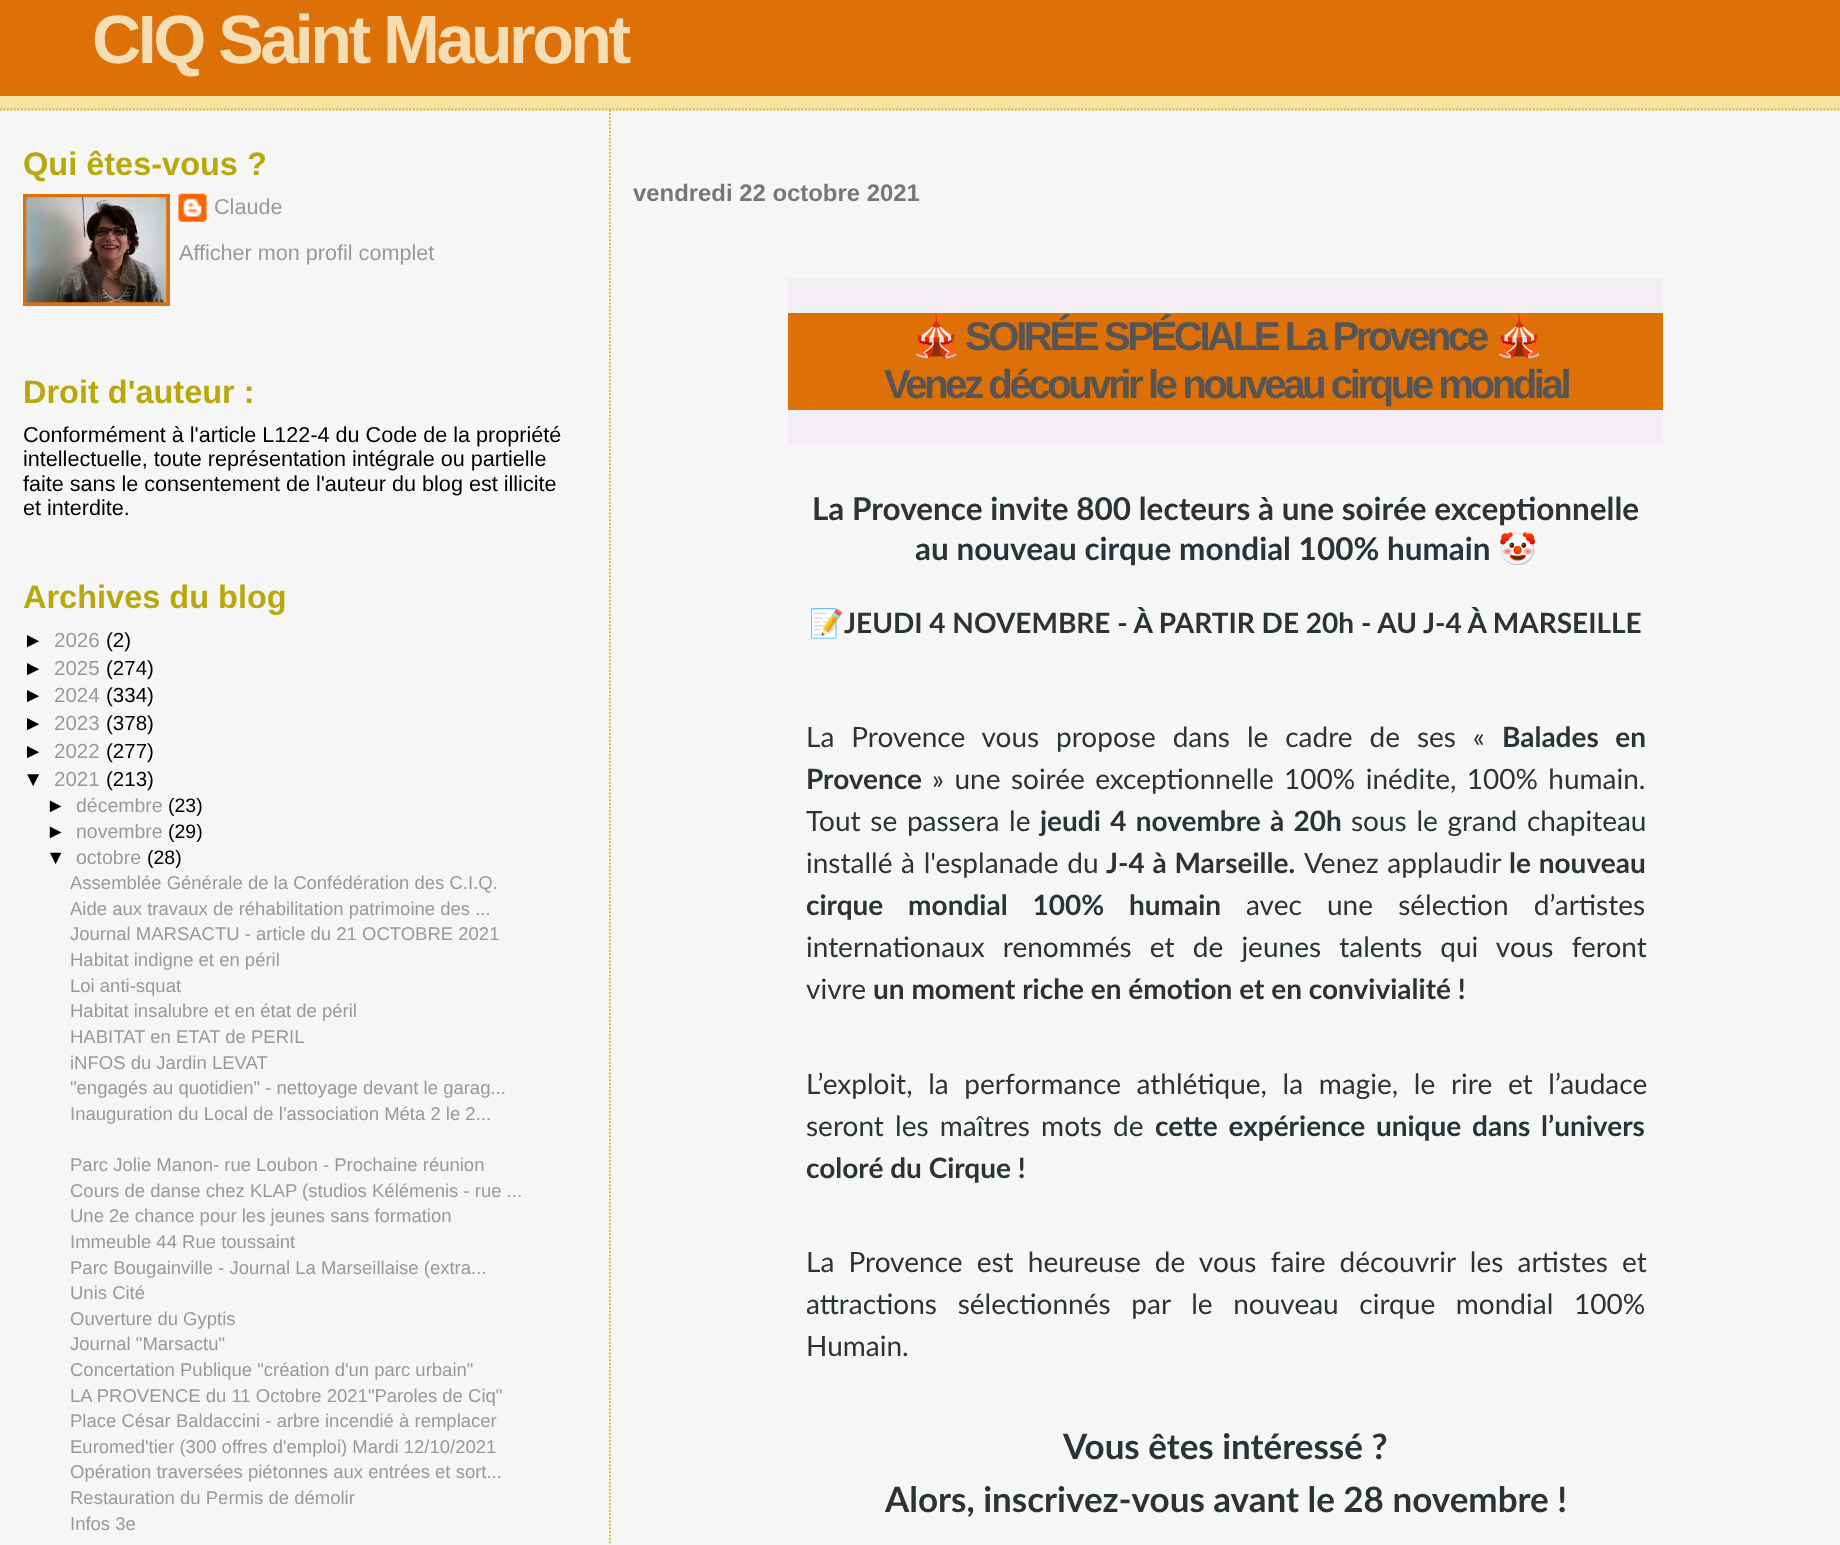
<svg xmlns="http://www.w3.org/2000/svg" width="1840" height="1545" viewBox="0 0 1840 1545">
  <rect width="100%" height="100%" fill="rgb(246,246,246)"/>
  <rect x="0" y="96" width="1840" height="14" fill="rgb(245,227,158)"/>
  <path d="M0 109.5H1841" fill="none" stroke="rgb(224,173,18)" stroke-width="1.8" stroke-dasharray="1.75 1.75"/>
  <rect x="0" y="0" width="1840" height="96" fill="rgb(222,112,8)"/>
  <text x="92" y="63" font-family="Liberation Sans" font-size="68.25" font-weight="bold" letter-spacing="-3.5" fill="rgb(245,222,179)">CIQ Saint Mauront</text>
  <text x="23" y="175" font-family="Liberation Sans" font-size="32.5" font-weight="bold" fill="rgb(184,168,13)">Qui êtes-vous ?</text>
  <rect x="25" y="196" width="143" height="108" fill="none" stroke="rgb(222,112,8)" stroke-width="4"/>
  <image x="26" y="197" width="141" height="106" href="pic1.png"/>
  <image x="178" y="193" width="29" height="29" href="pic2.png"/>
  <g font-family="Liberation Sans" font-size="21.6" fill="rgb(153,153,153)">
    <text x="214" y="214">Claude</text>
    <text x="179" y="260">Afficher mon profil complet</text>
  </g>
  <text x="23" y="403" font-family="Liberation Sans" font-size="32.5" font-weight="bold" fill="rgb(184,168,13)">Droit d'auteur :</text>
  <g font-family="Liberation Sans" font-size="21.6" fill="rgb(0,0,0)">
    <text>
      <tspan x="23" y="442">Conformément à l'article L122-4 du Code de la propriété</tspan>
      <tspan x="23" y="466">intellectuelle, toute représentation intégrale ou partielle</tspan>
      <tspan x="23" y="491">faite sans le consentement de l'auteur du blog est illicite</tspan>
      <tspan x="23" y="515">et interdite.</tspan>
    </text>
  </g>
  <text x="23" y="608" font-family="Liberation Sans" font-size="32.5" font-weight="bold" fill="rgb(184,168,13)">Archives du blog</text>
  <text x="23" y="647" font-family="Liberation Sans" font-size="20.5" fill="rgb(0,0,0)">►</text>
  <text x="54" y="647" font-family="Liberation Sans" font-size="20.5" fill="rgb(153,153,153)">2026</text>
  <g font-family="Liberation Sans" font-size="20.5" fill="rgb(0,0,0)">
    <text x="106" y="647">(2)</text>
    <text x="23" y="675">►</text>
  </g>
  <text x="54" y="675" font-family="Liberation Sans" font-size="20.5" fill="rgb(153,153,153)">2025</text>
  <g font-family="Liberation Sans" font-size="20.5" fill="rgb(0,0,0)">
    <text x="106" y="675">(274)</text>
    <text x="23" y="702">►</text>
  </g>
  <text x="54" y="702" font-family="Liberation Sans" font-size="20.5" fill="rgb(153,153,153)">2024</text>
  <g font-family="Liberation Sans" font-size="20.5" fill="rgb(0,0,0)">
    <text x="106" y="702">(334)</text>
    <text x="23" y="730">►</text>
  </g>
  <text x="54" y="730" font-family="Liberation Sans" font-size="20.5" fill="rgb(153,153,153)">2023</text>
  <g font-family="Liberation Sans" font-size="20.5" fill="rgb(0,0,0)">
    <text x="106" y="730">(378)</text>
    <text x="23" y="758">►</text>
  </g>
  <text x="54" y="758" font-family="Liberation Sans" font-size="20.5" fill="rgb(153,153,153)">2022</text>
  <g font-family="Liberation Sans" font-size="20.5" fill="rgb(0,0,0)">
    <text x="106" y="758">(277)</text>
    <text x="23" y="786">▼</text>
  </g>
  <text x="54" y="786" font-family="Liberation Sans" font-size="20.5" fill="rgb(153,153,153)">2021</text>
  <text x="106" y="786" font-family="Liberation Sans" font-size="20.5" fill="rgb(0,0,0)">(213)</text>
  <text x="46" y="812" font-family="Liberation Sans" font-size="19.5" fill="rgb(0,0,0)">►</text>
  <text x="76" y="812" font-family="Liberation Sans" font-size="19.5" fill="rgb(153,153,153)">décembre</text>
  <g font-family="Liberation Sans" font-size="19.5" fill="rgb(0,0,0)">
    <text x="168" y="812">(23)</text>
    <text x="46" y="838">►</text>
  </g>
  <text x="76" y="838" font-family="Liberation Sans" font-size="19.5" fill="rgb(153,153,153)">novembre</text>
  <g font-family="Liberation Sans" font-size="19.5" fill="rgb(0,0,0)">
    <text x="168" y="838">(29)</text>
    <text x="46" y="864">▼</text>
  </g>
  <text x="76" y="864" font-family="Liberation Sans" font-size="19.5" fill="rgb(153,153,153)">octobre</text>
  <text x="147" y="864" font-family="Liberation Sans" font-size="19.5" fill="rgb(0,0,0)">(28)</text>
  <g font-family="Liberation Sans" font-size="18.5" fill="rgb(153,153,153)">
    <text>
      <tspan x="70" y="889">Assemblée Générale de la Confédération des C.I.Q.</tspan>
      <tspan x="70" y="915">Aide aux travaux de réhabilitation patrimoine des ...</tspan>
      <tspan x="70" y="940">Journal MARSACTU - article du 21 OCTOBRE 2021</tspan>
      <tspan x="70" y="966">Habitat indigne et en péril</tspan>
      <tspan x="70" y="992">Loi anti-squat</tspan>
      <tspan x="70" y="1017">Habitat insalubre et en état de péril</tspan>
      <tspan x="70" y="1043">HABITAT en ETAT de PERIL</tspan>
      <tspan x="70" y="1069">iNFOS du Jardin LEVAT</tspan>
      <tspan x="70" y="1094">"engagés au quotidien" - nettoyage devant le garag...</tspan>
      <tspan x="70" y="1120">Inauguration du Local de l'association Méta 2 le 2...</tspan>
    </text>
    <text>
      <tspan x="70" y="1171">Parc Jolie Manon- rue Loubon - Prochaine réunion</tspan>
      <tspan x="70" y="1197">Cours de danse chez KLAP (studios Kélémenis - rue ...</tspan>
      <tspan x="70" y="1222">Une 2e chance pour les jeunes sans formation</tspan>
      <tspan x="70" y="1248">Immeuble 44 Rue toussaint</tspan>
      <tspan x="70" y="1274">Parc Bougainville - Journal La Marseillaise (extra...</tspan>
      <tspan x="70" y="1299">Unis Cité</tspan>
      <tspan x="70" y="1325">Ouverture du Gyptis</tspan>
      <tspan x="70" y="1350">Journal "Marsactu"</tspan>
      <tspan x="70" y="1376">Concertation Publique "création d'un parc urbain"</tspan>
      <tspan x="70" y="1402">LA PROVENCE du 11 Octobre 2021"Paroles de Ciq"</tspan>
      <tspan x="70" y="1427">Place César Baldaccini - arbre incendié à remplacer</tspan>
      <tspan x="70" y="1453">Euromed'tier (300 offres d'emploi) Mardi 12/10/2021</tspan>
      <tspan x="70" y="1478">Opération traversées piétonnes aux entrées et sort...</tspan>
      <tspan x="70" y="1504">Restauration du Permis de démolir</tspan>
      <tspan x="70" y="1530">Infos 3e</tspan>
    </text>
  </g>
  <path d="M610 110V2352" fill="none" stroke="rgb(224,173,18)" stroke-width="1.8" stroke-dasharray="1.75 1.75"/>
  <text x="633" y="201" font-family="Liberation Sans" font-size="23.9" font-weight="bold" fill="rgb(119,119,119)">vendredi 22 octobre 2021</text>
  <rect x="788" y="278" width="875" height="167" fill="rgb(243,238,243)"/>
  <rect x="788" y="313" width="875" height="97" fill="rgb(222,112,8)"/>
  <text x="911" y="350" font-family="Noto Color Emoji" font-size="40.25" font-weight="bold" letter-spacing="-3.5" fill="rgb(85,85,85)">🎪</text>
  <text x="965" y="350" font-family="Liberation Sans" font-size="40.25" font-weight="bold" letter-spacing="-3.5" fill="rgb(85,85,85)">SOIRÉE SPÉCIALE La Provence</text>
  <text x="1494" y="350" font-family="Noto Color Emoji" font-size="40.25" font-weight="bold" letter-spacing="-3.5" fill="rgb(85,85,85)">🎪</text>
  <text x="884" y="398" font-family="Liberation Sans" font-size="40.25" font-weight="bold" letter-spacing="-3.5" fill="rgb(85,85,85)">Venez découvrir le nouveau cirque mondial</text>
  <g font-family="Lato" font-size="31.5" font-weight="bold" fill="rgb(44,51,54)">
    <text x="812" y="520">La Provence invite 800 lecteurs à une soirée exceptionnelle</text>
    <text x="915" y="560">au nouveau cirque mondial 100% humain</text>
  </g>
  <text x="1498" y="560" font-family="Noto Color Emoji" font-size="31.5" font-weight="bold" fill="rgb(44,51,54)">🤡</text>
  <text x="809" y="633" font-family="Noto Color Emoji" font-size="28" font-weight="bold" fill="rgb(44,51,54)">📝</text>
  <text x="844" y="633" font-family="Lato" font-size="28" font-weight="bold" fill="rgb(44,51,54)">JEUDI 4 NOVEMBRE - À PARTIR DE 20h - AU J-4 À MARSEILLE</text>
  <text x="806" y="747" word-spacing="9.75" font-family="Lato" font-size="28" fill="rgb(44,51,54)">La Provence vous propose dans le cadre de ses «</text>
  <g font-family="Lato" font-size="28" font-weight="bold" fill="rgb(44,51,54)">
    <text x="1502" y="747" word-spacing="9.75">Balades en</text>
    <text x="806" y="789">Provence</text>
  </g>
  <g font-family="Lato" font-size="28" fill="rgb(44,51,54)">
    <text x="932" y="789" word-spacing="3.25">» une soirée exceptionnelle 100% inédite, 100% humain.</text>
    <text x="806" y="831" word-spacing="2.5">Tout se passera le</text>
  </g>
  <text x="1040" y="831" word-spacing="2.5" font-family="Lato" font-size="28" font-weight="bold" fill="rgb(44,51,54)">jeudi 4 novembre à 20h</text>
  <g font-family="Lato" font-size="28" fill="rgb(44,51,54)">
    <text x="1351" y="831" word-spacing="2.5">sous le grand chapiteau</text>
    <text x="806" y="873" word-spacing="1.5">installé à l'esplanade du</text>
  </g>
  <text x="1106" y="873" word-spacing="1" font-family="Lato" font-size="28" font-weight="bold" fill="rgb(44,51,54)">J-4 à Marseille.</text>
  <text x="1304" y="873" word-spacing="1.5" font-family="Lato" font-size="28" fill="rgb(44,51,54)">Venez applaudir</text>
  <g font-family="Lato" font-size="28" font-weight="bold" fill="rgb(44,51,54)">
    <text x="1509" y="873" word-spacing="1">le nouveau</text>
    <text x="806" y="915" word-spacing="18">cirque mondial 100% humain</text>
  </g>
  <g font-family="Lato" font-size="28" fill="rgb(44,51,54)">
    <text x="1246" y="915" word-spacing="18">avec une sélection d’artistes</text>
    <text>
      <tspan x="806" y="957" word-spacing="11">internationaux renommés et de jeunes talents qui vous feront</tspan>
      <tspan x="806" y="999">vivre</tspan>
    </text>
  </g>
  <text x="873" y="999" font-family="Lato" font-size="28" font-weight="bold" fill="rgb(44,51,54)">un moment riche en émotion et en convivialité !</text>
  <g font-family="Lato" font-size="28" fill="rgb(44,51,54)">
    <text>
      <tspan x="806" y="1094" word-spacing="8.5">L’exploit, la performance athlétique, la magie, le rire et l’audace</tspan>
      <tspan x="806" y="1136" word-spacing="4">seront les maîtres mots de</tspan>
    </text>
  </g>
  <g font-family="Lato" font-size="28" font-weight="bold" fill="rgb(44,51,54)">
    <text x="1155" y="1136" word-spacing="4">cette expérience unique dans l’univers</text>
    <text x="806" y="1178">coloré du Cirque !</text>
  </g>
  <g font-family="Lato" font-size="28" fill="rgb(44,51,54)">
    <text>
      <tspan x="806" y="1272" word-spacing="7">La Provence est heureuse de vous faire découvrir les artistes et</tspan>
      <tspan x="806" y="1314" word-spacing="13.5">attractions sélectionnés par le nouveau cirque mondial 100%</tspan>
      <tspan x="806" y="1356">Humain.</tspan>
    </text>
  </g>
  <g font-family="Lato" font-size="35" font-weight="bold" fill="rgb(44,51,54)">
    <text x="1063" y="1459">Vous êtes intéressé ?</text>
    <text x="885" y="1512">Alors, inscrivez-vous avant le 28 novembre !</text>
  </g>
</svg>
